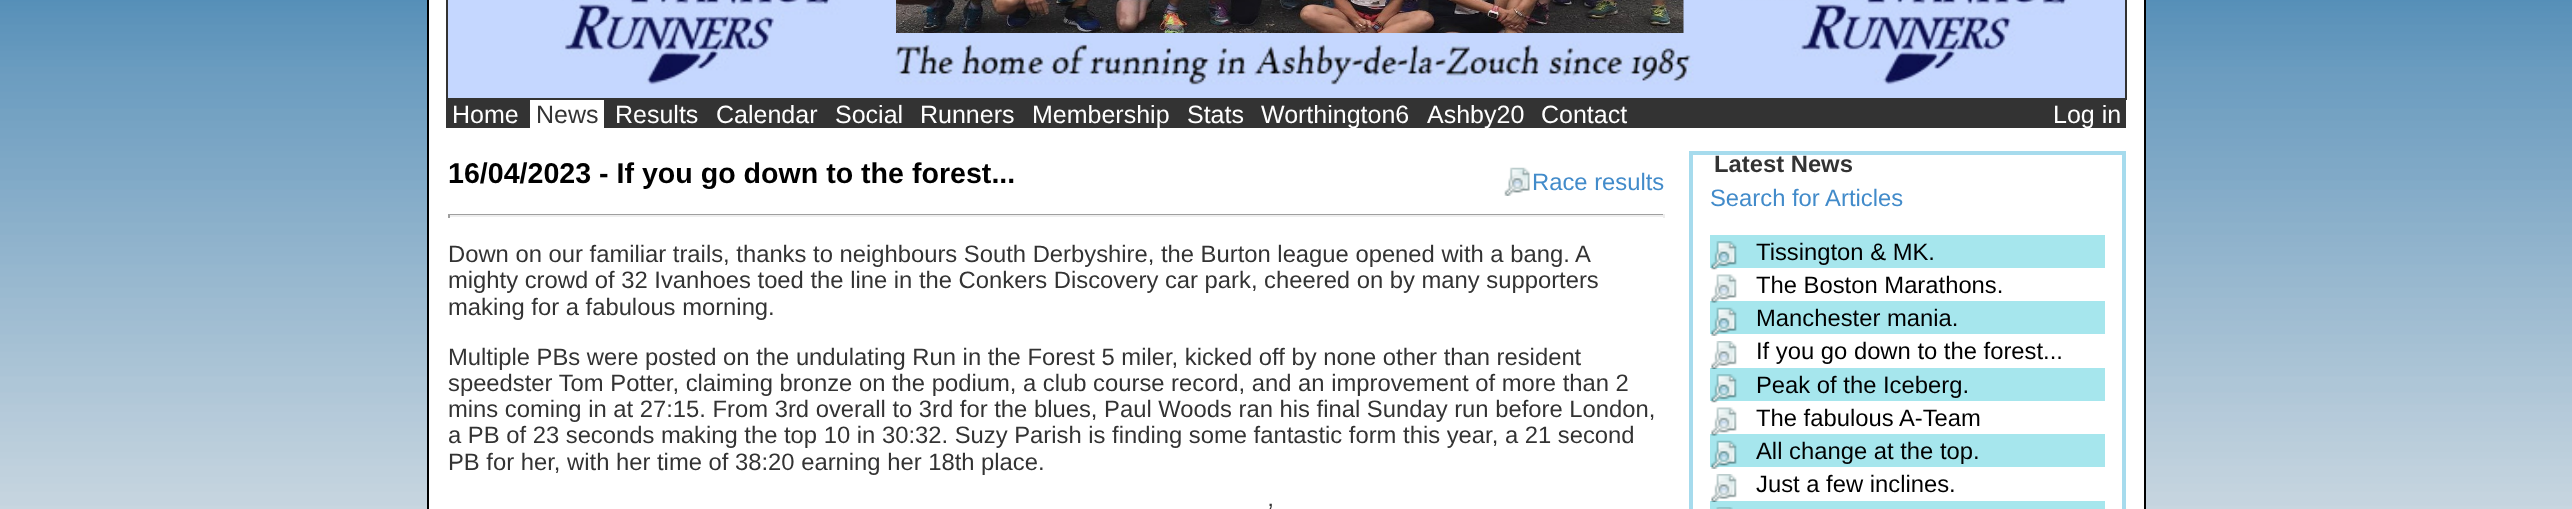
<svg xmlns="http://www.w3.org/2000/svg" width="2572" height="509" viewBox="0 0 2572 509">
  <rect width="100%" height="100%" fill="rgb(255,255,255)"/>
  <image x="0" y="0" width="2572" height="509" href="pic1.png"/>
  <rect x="428" y="-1" width="1717" height="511" fill="rgb(255,255,255)" stroke="rgb(0,0,0)" stroke-width="2"/>
  <rect x="448" y="0" width="1677" height="98" fill="rgb(197,215,255)"/>
  <image x="560" y="0" width="1565" height="98" href="pic2.png"/>
  <rect x="2125" y="0" width="2" height="100" fill="rgb(51,51,51)"/>
  <rect x="446" y="98" width="1680" height="30" fill="rgb(51,51,51)"/>
  <rect x="446" y="0" width="2" height="100" fill="rgb(51,51,51)"/>
  <image x="896" y="0" width="788" height="33" href="pic3.png"/>
  <text x="452" y="123" font-family="Liberation Sans" font-size="25" fill="rgb(255,255,255)">Home</text>
  <rect x="530" y="100" width="74" height="28" fill="rgb(255,255,255)"/>
  <text x="536" y="123" font-family="Liberation Sans" font-size="25" fill="rgb(51,51,51)">News</text>
  <g font-family="Liberation Sans" font-size="25" fill="rgb(255,255,255)">
    <text x="615" y="123">Results</text>
    <text x="716" y="123">Calendar</text>
    <text x="835" y="123">Social</text>
    <text x="920" y="123">Runners</text>
    <text x="1032" y="123">Membership</text>
    <text x="1187" y="123">Stats</text>
    <text x="1261" y="123">Worthington6</text>
    <text x="1427" y="123">Ashby20</text>
    <text x="1541" y="123">Contact</text>
    <text x="2053" y="123">Log in</text>
  </g>
  <text x="448" y="183" font-family="Liberation Sans" font-size="28.6" font-weight="bold" fill="rgb(0,0,0)">16/04/2023 - If you go down to the forest...</text>
  <image x="1504" y="167" width="26" height="29" href="pic4.png"/>
  <text x="1532" y="190" font-family="Liberation Sans" font-size="23.8" fill="rgb(66,139,202)">Race results</text>
  <rect x="448" y="214" width="1216" height="1" fill="rgb(159,159,159)"/>
  <rect x="1663" y="214" width="2" height="4" fill="rgb(238,238,238)"/>
  <rect x="448" y="215" width="1216" height="2" fill="rgb(238,238,238)"/>
  <rect x="448" y="214" width="2" height="4" fill="rgb(159,159,159)"/>
  <g font-family="Liberation Sans" font-size="23.8" fill="rgb(51,51,51)">
    <text>
      <tspan x="448" y="262">Down on our familiar trails, thanks to neighbours South Derbyshire, the Burton league opened with a bang. A</tspan>
      <tspan x="448" y="288">mighty crowd of 32 Ivanhoes toed the line in the Conkers Discovery car park, cheered on by many supporters</tspan>
      <tspan x="448" y="315">making for a fabulous morning.</tspan>
    </text>
    <text>
      <tspan x="448" y="365">Multiple PBs were posted on the undulating Run in the Forest 5 miler, kicked off by none other than resident</tspan>
      <tspan x="448" y="391">speedster Tom Potter, claiming bronze on the podium, a club course record, and an improvement of more than 2</tspan>
      <tspan x="448" y="417">mins coming in at 27:15. From 3rd overall to 3rd for the blues, Paul Woods ran his final Sunday run before London,</tspan>
      <tspan x="448" y="443">a PB of 23 seconds making the top 10 in 30:32. Suzy Parish is finding some fantastic form this year, a 21 second</tspan>
      <tspan x="448" y="470">PB for her, with her time of 38:20 earning her 18th place.</tspan>
    </text>
    <text x="1268" y="520">’</text>
  </g>
  <rect x="1691" y="153" width="433" height="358" fill="none" stroke="rgb(166,219,237)" stroke-width="4"/>
  <text x="1714" y="172" font-family="Liberation Sans" font-size="23.8" font-weight="bold" fill="rgb(51,51,51)">Latest News</text>
  <text x="1710" y="206" font-family="Liberation Sans" font-size="23.8" fill="rgb(66,139,202)">Search for Articles</text>
  <rect x="1710" y="235" width="395" height="33" fill="rgb(166,230,237)"/>
  <image x="1711" y="241" width="26" height="29" href="pic5.png"/>
  <text x="1756" y="260" font-family="Liberation Sans" font-size="23.8" fill="rgb(0,0,0)">Tissington &amp; MK.</text>
  <rect x="1710" y="301" width="395" height="33" fill="rgb(166,230,237)"/>
  <image x="1711" y="274" width="26" height="29" href="pic6.png"/>
  <text x="1756" y="293" font-family="Liberation Sans" font-size="23.8" fill="rgb(0,0,0)">The Boston Marathons.</text>
  <image x="1711" y="307" width="26" height="29" href="pic7.png"/>
  <text x="1756" y="326" font-family="Liberation Sans" font-size="23.8" fill="rgb(0,0,0)">Manchester mania.</text>
  <rect x="1710" y="368" width="395" height="33" fill="rgb(166,230,237)"/>
  <image x="1711" y="341" width="26" height="28" href="pic8.png"/>
  <text x="1756" y="359" font-family="Liberation Sans" font-size="23.8" fill="rgb(0,0,0)">If you go down to the forest...</text>
  <image x="1711" y="374" width="26" height="29" href="pic5.png"/>
  <text x="1756" y="393" font-family="Liberation Sans" font-size="23.8" fill="rgb(0,0,0)">Peak of the Iceberg.</text>
  <rect x="1710" y="434" width="395" height="33" fill="rgb(166,230,237)"/>
  <image x="1711" y="407" width="26" height="29" href="pic6.png"/>
  <text x="1756" y="426" font-family="Liberation Sans" font-size="23.8" fill="rgb(0,0,0)">The fabulous A-Team</text>
  <image x="1711" y="440" width="26" height="29" href="pic7.png"/>
  <text x="1756" y="459" font-family="Liberation Sans" font-size="23.8" fill="rgb(0,0,0)">All change at the top.</text>
  <rect x="1710" y="501" width="395" height="8" fill="rgb(166,230,237)"/>
  <image x="1711" y="474" width="26" height="28" href="pic8.png"/>
  <text x="1756" y="492" font-family="Liberation Sans" font-size="23.8" fill="rgb(0,0,0)">Just a few inclines.</text>
  <image x="1716" y="507" width="17" height="2" href="pic9.png"/>
</svg>
